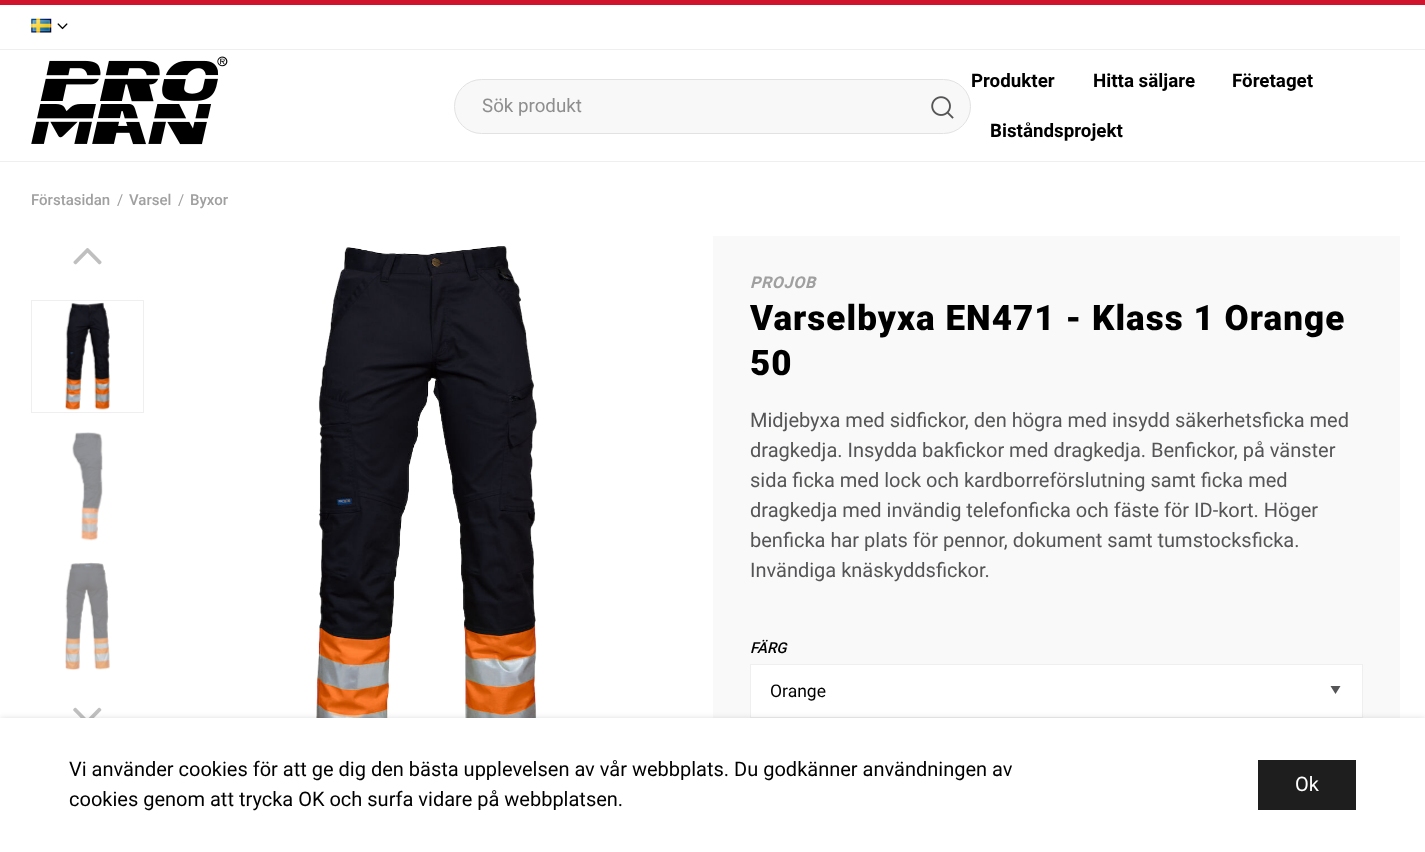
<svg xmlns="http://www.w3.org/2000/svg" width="1425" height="852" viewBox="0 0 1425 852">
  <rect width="100%" height="100%" fill="rgb(255,255,255)"/>
  <rect x="0" y="0" width="1425" height="5" fill="rgb(207,20,43)"/>
  <image x="31" y="18" width="21" height="15" href="pic1.png"/>
  <image x="57" y="23" width="11" height="7" href="pic2.png"/>
  <rect x="0" y="49" width="1425" height="1" fill="rgb(239,239,239)"/>
  <rect x="0" y="161" width="1425" height="1" fill="rgb(239,239,239)"/>
  <image x="31" y="56" width="197" height="89" href="pic3.png"/>
  <rect x="454.5" y="79.5" width="516" height="54" rx="27" fill="rgb(248,248,248)" stroke="rgb(226,226,226)"/>
  <text x="482" y="112" font-family="Roboto" font-size="18.75" fill="rgb(142,142,142)">Sök produkt</text>
  <image x="931" y="96" width="23" height="23" href="pic4.png"/>
  <g font-family="Roboto" font-size="18.75" font-weight="bold" fill="rgb(0,0,0)">
    <text x="971" y="87">Produkter</text>
    <text x="1093" y="87">Hitta säljare</text>
    <text x="1232" y="87">Företaget</text>
    <text x="990" y="137">Biståndsprojekt</text>
  </g>
  <text x="31" y="205" font-family="Roboto" font-size="15" font-weight="500" fill="rgb(160,160,160)">Förstasidan</text>
  <text x="117" y="205" font-family="Roboto" font-size="15" fill="rgb(160,160,160)">/</text>
  <text x="129" y="205" font-family="Roboto" font-size="15" font-weight="500" fill="rgb(160,160,160)">Varsel</text>
  <text x="178" y="205" font-family="Roboto" font-size="15" fill="rgb(160,160,160)">/</text>
  <text x="190" y="205" font-family="Roboto" font-size="15" font-weight="500" fill="rgb(160,160,160)">Byxor</text>
  <image x="73" y="248" width="29" height="17" href="pic5.png"/>
  <rect x="31.5" y="300.5" width="112" height="112" fill="none" stroke="rgb(239,239,239)"/>
  <image x="65" y="302" width="45" height="109" href="pic6.png"/>
  <image x="72" y="432" width="31" height="109" href="pic7.png"/>
  <image x="65" y="562" width="45" height="108" href="pic8.png"/>
  <image x="73" y="707" width="29" height="11" href="pic9.png"/>
  <image x="316" y="246" width="221" height="472" href="pic10.png"/>
  <rect x="713" y="236" width="687" height="482" fill="rgb(249,249,249)"/>
  <text x="750" y="288" font-family="Roboto" font-size="16.25" font-weight="bold" font-style="italic" letter-spacing="0.5" fill="rgb(160,160,160)">PROJOB</text>
  <g font-family="Roboto" font-size="35" font-weight="900" letter-spacing="1.05" fill="rgb(0,0,0)">
    <text>
      <tspan x="750" y="330">Varselbyxa EN471 - Klass 1 Orange</tspan>
      <tspan x="750" y="375">50</tspan>
    </text>
  </g>
  <g font-family="Roboto" font-size="20" fill="rgb(85,85,87)">
    <text>
      <tspan x="750" y="427">Midjebyxa med sidﬁckor, den högra med insydd säkerhetsﬁcka med</tspan>
      <tspan x="750" y="457">dragkedja. Insydda bakﬁckor med dragkedja. Benfickor, på vänster</tspan>
      <tspan x="750" y="487">sida ficka med lock och kardborreförslutning samt ficka med</tspan>
      <tspan x="750" y="517">dragkedja med invändig telefonficka och fäste för ID-kort. Höger</tspan>
      <tspan x="750" y="547">benficka har plats för pennor, dokument samt tumstocksficka.</tspan>
      <tspan x="750" y="577">Invändiga knäskyddsﬁckor.</tspan>
    </text>
  </g>
  <text x="750" y="653" font-family="Roboto" font-size="15" font-weight="500" font-style="italic" fill="rgb(0,0,0)">FÄRG</text>
  <rect x="751" y="665" width="611" height="52" fill="rgb(255,255,255)"/>
  <path d="M1330.5 686H1340.5L1335.5 694Z" fill="rgb(85,85,87)"/>
  <rect x="750.5" y="664.5" width="612" height="53" fill="none" stroke="rgb(239,239,239)"/>
  <text x="770" y="697" font-family="Roboto" font-size="17.5" fill="rgb(0,0,0)">Orange</text>
  <rect x="0" y="719" width="1425" height="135" fill="rgba(30,30,30,0.2)" filter="blur(3px)"/>
  <rect x="0" y="718" width="1425" height="134" fill="rgb(255,255,255)"/>
  <g font-family="Roboto" font-size="20" fill="rgb(0,0,0)">
    <text>
      <tspan x="69" y="776">Vi använder cookies för att ge dig den bästa upplevelsen av vår webbplats. Du godkänner användningen av</tspan>
      <tspan x="69" y="806">cookies genom att trycka OK och surfa vidare på webbplatsen.</tspan>
    </text>
  </g>
  <rect x="1258" y="760" width="98" height="50" fill="rgb(30,30,30)"/>
  <text x="1295" y="791" font-family="Roboto" font-size="20" fill="rgb(255,255,255)">Ok</text>
</svg>
